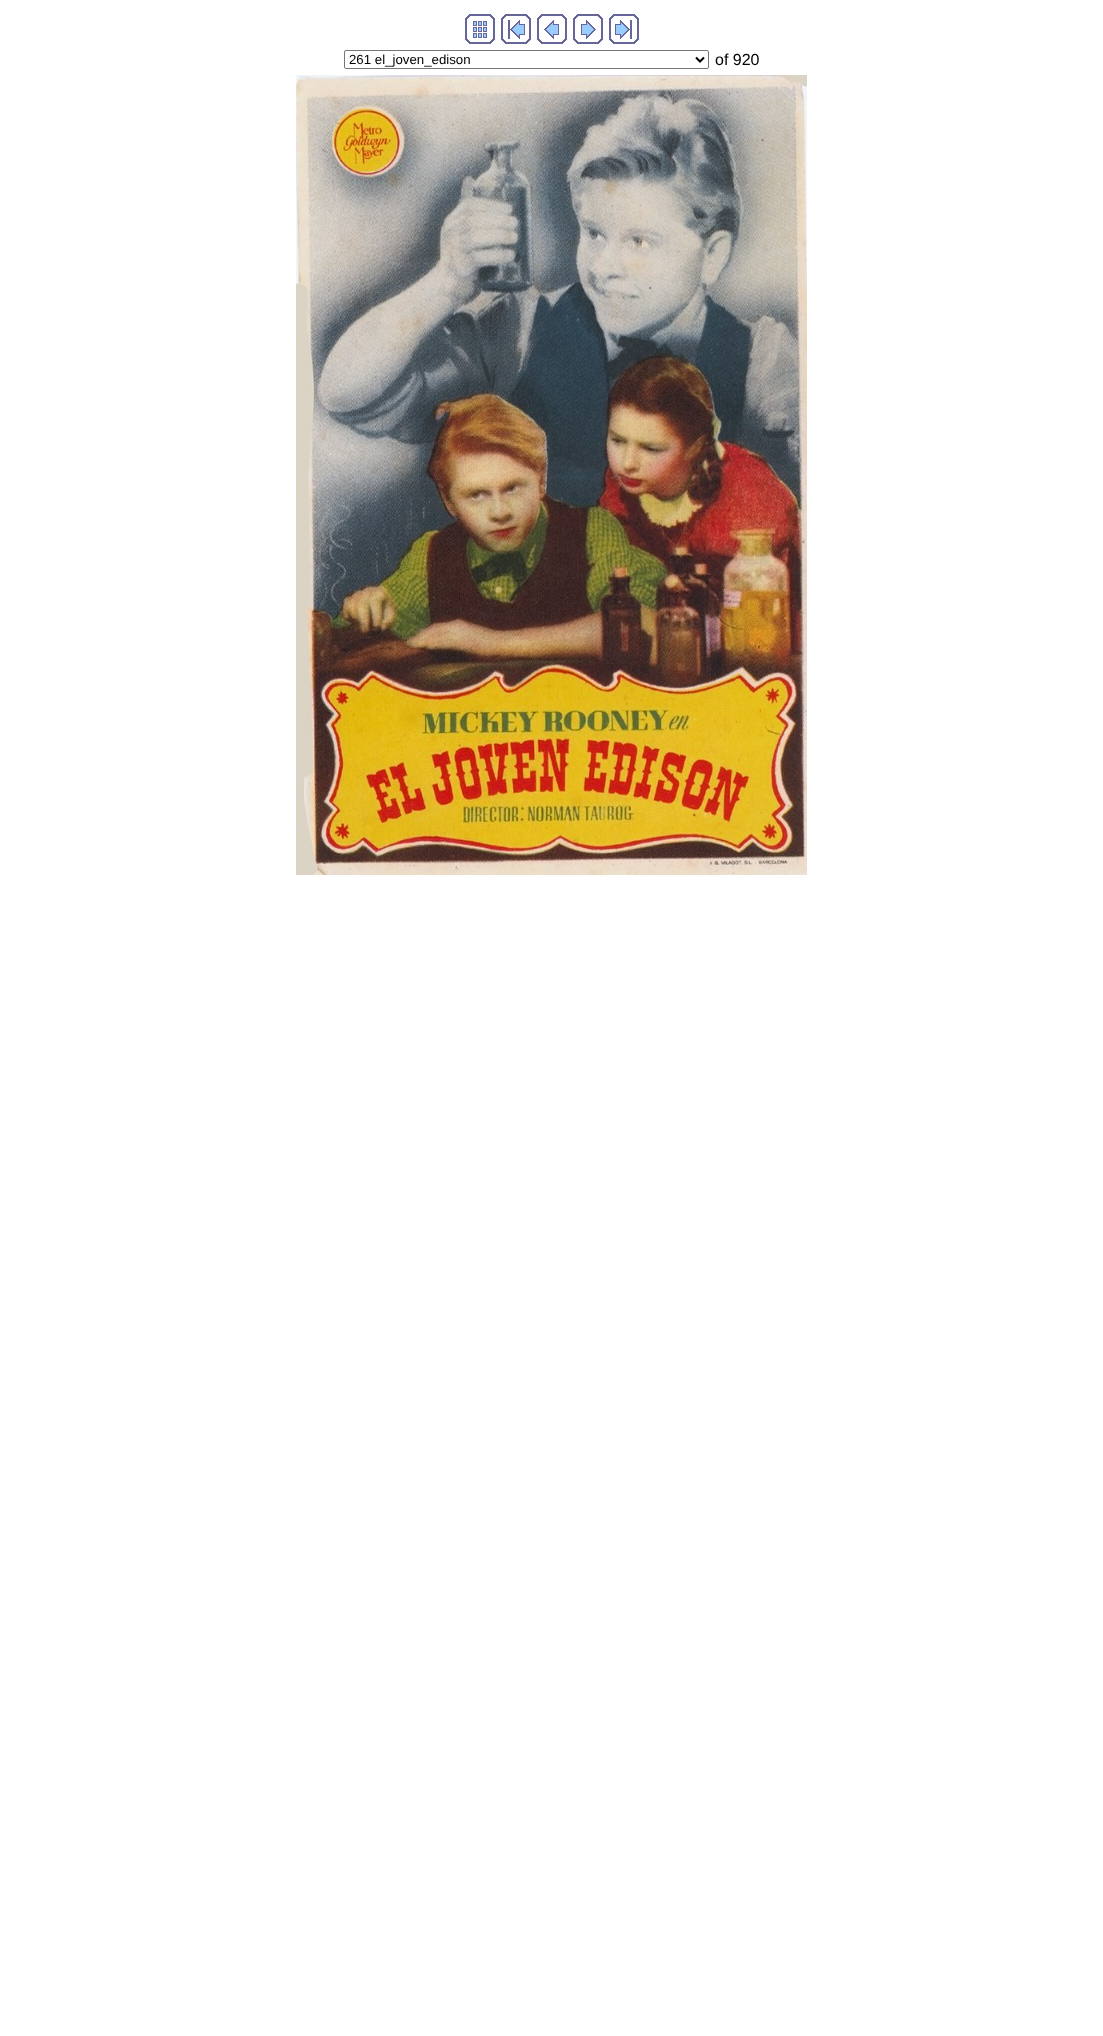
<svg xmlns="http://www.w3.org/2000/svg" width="1103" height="2036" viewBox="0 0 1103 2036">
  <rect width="100%" height="100%" fill="rgb(255,255,255)"/>
  <image x="465" y="14" width="30" height="30" href="pic1.png"/>
  <image x="501" y="14" width="30" height="30" href="pic2.png"/>
  <image x="537" y="14" width="30" height="30" href="pic3.png"/>
  <image x="573" y="14" width="30" height="30" href="pic4.png"/>
  <image x="609" y="14" width="30" height="30" href="pic5.png"/>
  <rect x="344.5" y="50.5" width="364" height="18" rx="1.5" fill="none" stroke="rgb(118,118,118)"/>
  <path d="M696 57.5L700 61.5L704 57.5" fill="none" stroke="rgb(0,0,0)" stroke-width="2"/>
  <text x="349" y="64" font-family="Liberation Sans" font-size="13.25" fill="rgb(0,0,0)">261 el_joven_edison</text>
  <text x="715" y="65" font-family="Liberation Sans" font-size="16" fill="rgb(0,0,0)">of 920</text>
  <image x="296" y="75" width="511" height="800" href="pic6.png"/>
</svg>
